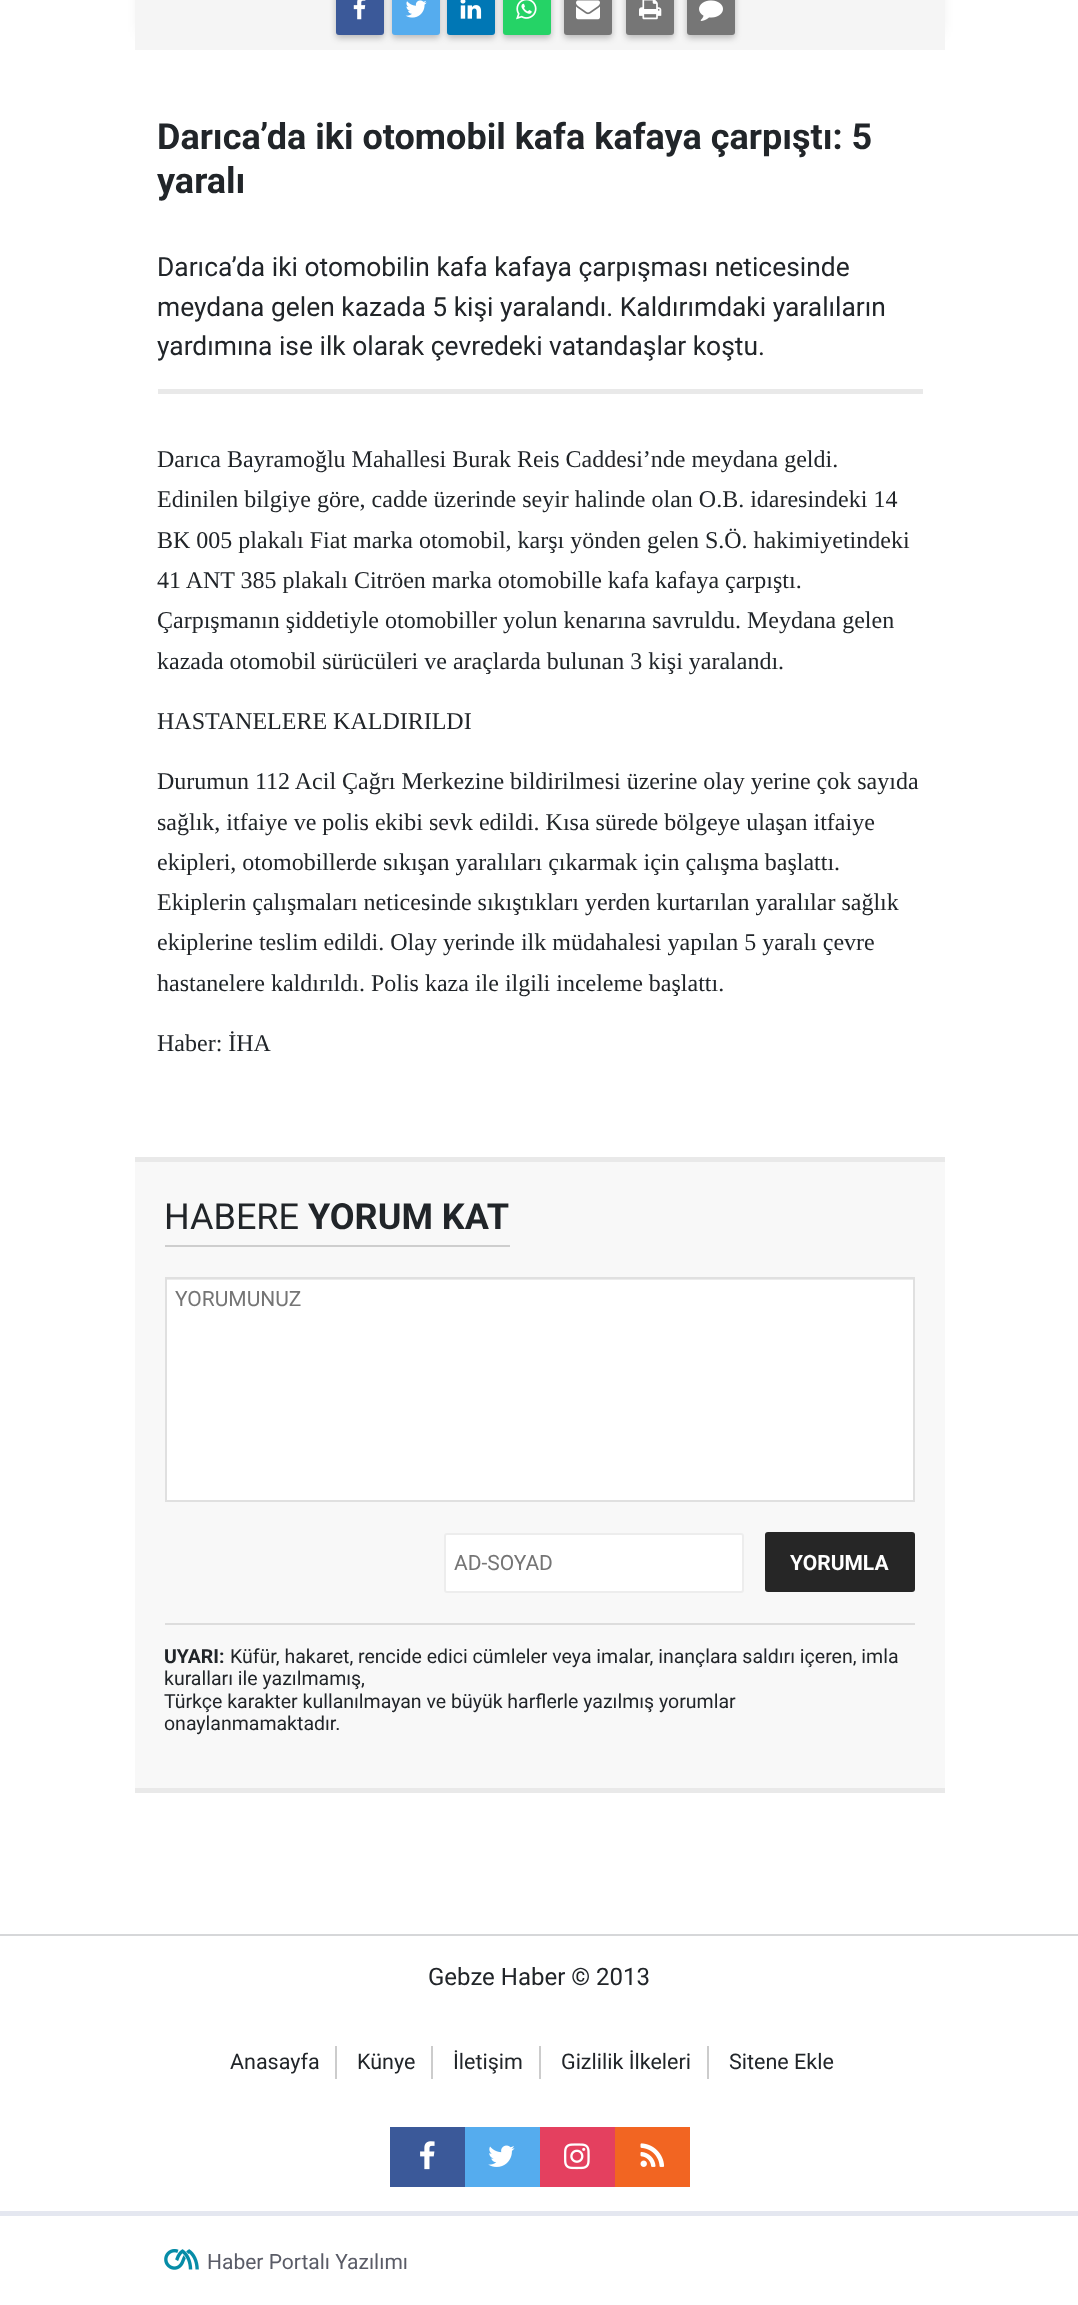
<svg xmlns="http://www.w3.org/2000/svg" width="1078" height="2305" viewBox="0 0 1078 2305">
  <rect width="100%" height="100%" fill="rgb(255,255,255)"/>
  <rect x="143" y="-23" width="795" height="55" fill="rgba(0,0,0,0.15)" filter="blur(7.5px)"/>
  <rect x="135" y="0" width="810" height="50" fill="rgb(245,245,245)"/>
  <rect x="336" y="-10" width="48" height="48" rx="3" fill="rgba(50,50,50,0.3)" filter="blur(3px)"/>
  <rect x="336" y="-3" width="48" height="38" rx="3" fill="rgb(59,89,153)"/>
  <image x="353" y="0" width="13" height="20" href="pic1.png"/>
  <rect x="392" y="-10" width="48" height="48" rx="3" fill="rgba(50,50,50,0.3)" filter="blur(3px)"/>
  <rect x="392" y="-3" width="48" height="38" rx="3" fill="rgb(85,172,238)"/>
  <image x="405" y="0" width="22" height="18" href="pic2.png"/>
  <rect x="447" y="-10" width="48" height="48" rx="3" fill="rgba(50,50,50,0.3)" filter="blur(3px)"/>
  <rect x="447" y="-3" width="48" height="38" rx="3" fill="rgb(0,119,181)"/>
  <image x="460" y="0" width="22" height="19" href="pic3.png"/>
  <rect x="503" y="-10" width="48" height="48" rx="3" fill="rgba(50,50,50,0.3)" filter="blur(3px)"/>
  <rect x="503" y="-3" width="48" height="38" rx="3" fill="rgb(37,211,102)"/>
  <image x="516" y="0" width="21" height="20" href="pic4.png"/>
  <rect x="564" y="-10" width="48" height="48" rx="3" fill="rgba(50,50,50,0.3)" filter="blur(3px)"/>
  <rect x="564" y="-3" width="48" height="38" rx="3" fill="rgb(118,118,118)"/>
  <image x="576" y="0" width="24" height="20" href="pic5.png"/>
  <rect x="626" y="-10" width="48" height="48" rx="3" fill="rgba(50,50,50,0.3)" filter="blur(3px)"/>
  <rect x="626" y="-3" width="48" height="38" rx="3" fill="rgb(118,118,118)"/>
  <image x="639" y="0" width="23" height="20" href="pic6.png"/>
  <rect x="687" y="-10" width="48" height="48" rx="3" fill="rgba(50,50,50,0.3)" filter="blur(3px)"/>
  <rect x="687" y="-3" width="48" height="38" rx="3" fill="rgb(118,118,118)"/>
  <image x="699" y="0" width="24" height="21" href="pic7.png"/>
  <rect x="158" y="389" width="765" height="5" fill="rgb(233,233,233)"/>
  <g font-family="Roboto" font-size="36" font-weight="bold" fill="rgb(33,37,41)">
    <text>
      <tspan x="157" y="149">Darıca’da iki otomobil kafa kafaya çarpıştı: 5</tspan>
      <tspan x="157" y="193">yaralı</tspan>
    </text>
  </g>
  <g font-family="Roboto" font-size="26.4" fill="rgb(33,37,41)">
    <text>
      <tspan x="157" y="276">Darıca’da iki otomobilin kafa kafaya çarpışması neticesinde</tspan>
      <tspan x="157" y="316">meydana gelen kazada 5 kişi yaralandı. Kaldırımdaki yaralıların</tspan>
      <tspan x="157" y="355">yardımına ise ilk olarak çevredeki vatandaşlar koştu.</tspan>
    </text>
  </g>
  <g font-family="Liberation Serif" font-size="24" fill="rgb(33,37,41)">
    <text>
      <tspan x="157" y="467">Darıca Bayramoğlu Mahallesi Burak Reis Caddesi’nde meydana geldi.</tspan>
      <tspan x="157" y="507">Edinilen bilgiye göre, cadde üzerinde seyir halinde olan O.B. idaresindeki 14</tspan>
      <tspan x="157" y="548">BK 005 plakalı Fiat marka otomobil, karşı yönden gelen S.Ö. hakimiyetindeki</tspan>
      <tspan x="157" y="588">41 ANT 385 plakalı Citröen marka otomobille kafa kafaya çarpıştı.</tspan>
      <tspan x="157" y="628">Çarpışmanın şiddetiyle otomobiller yolun kenarına savruldu. Meydana gelen</tspan>
      <tspan x="157" y="669">kazada otomobil sürücüleri ve araçlarda bulunan 3 kişi yaralandı.</tspan>
    </text>
    <text x="157" y="729">HASTANELERE KALDIRILDI</text>
    <text>
      <tspan x="157" y="789">Durumun 112 Acil Çağrı Merkezine bildirilmesi üzerine olay yerine çok sayıda</tspan>
      <tspan x="157" y="830">sağlık, itfaiye ve polis ekibi sevk edildi. Kısa sürede bölgeye ulaşan itfaiye</tspan>
      <tspan x="157" y="870">ekipleri, otomobillerde sıkışan yaralıları çıkarmak için çalışma başlattı.</tspan>
      <tspan x="157" y="910">Ekiplerin çalışmaları neticesinde sıkıştıkları yerden kurtarılan yaralılar sağlık</tspan>
      <tspan x="157" y="950">ekiplerine teslim edildi. Olay yerinde ilk müdahalesi yapılan 5 yaralı çevre</tspan>
      <tspan x="157" y="991">hastanelere kaldırıldı. Polis kaza ile ilgili inceleme başlattı.</tspan>
    </text>
    <text x="157" y="1051">Haber: İHA</text>
  </g>
  <rect x="135" y="1162" width="810" height="626" fill="rgb(248,248,248)"/>
  <rect x="135" y="1157" width="810" height="5" fill="rgb(233,233,233)"/>
  <rect x="135" y="1788" width="810" height="5" fill="rgb(233,233,233)"/>
  <rect x="165" y="1245" width="345" height="2" fill="rgb(206,206,206)"/>
  <text x="164" y="1229" font-family="Roboto" font-size="36" fill="rgb(33,37,41)">HABERE</text>
  <text x="308" y="1229" font-family="Roboto" font-size="36" font-weight="bold" fill="rgb(33,37,41)">YORUM KAT</text>
  <rect x="167" y="1280" width="746" height="220" fill="rgb(255,255,255)"/>
  <rect x="167" y="1279" width="747" height="1" fill="rgb(236,236,236)"/>
  <rect x="166" y="1278" width="748" height="223" fill="none" stroke="rgb(224,224,224)" stroke-width="2"/>
  <text x="175" y="1306" font-family="Roboto" font-size="21" fill="rgb(117,117,117)">YORUMUNUZ</text>
  <rect x="445" y="1534" width="298" height="58" rx="2" fill="rgb(255,255,255)" stroke="rgb(237,237,237)" stroke-width="2"/>
  <text x="454" y="1570" font-family="Roboto" font-size="21" fill="rgb(117,117,117)">AD-SOYAD</text>
  <rect x="765" y="1532" width="150" height="60" rx="3" fill="rgb(38,38,38)"/>
  <text x="790" y="1570" font-family="Roboto" font-size="21" font-weight="bold" fill="rgb(255,255,255)">YORUMLA</text>
  <rect x="165" y="1623" width="750" height="2" fill="rgb(221,221,221)"/>
  <text x="164" y="1663" font-family="Roboto" font-size="19.5" font-weight="bold" fill="rgb(33,37,41)">UYARI:</text>
  <g font-family="Roboto" font-size="19.5" fill="rgb(33,37,41)">
    <text x="230" y="1663">Küfür, hakaret, rencide edici cümleler veya imalar, inançlara saldırı içeren, imla</text>
    <text>
      <tspan x="164" y="1685">kuralları ile yazılmamış,</tspan>
      <tspan x="164" y="1708">Türkçe karakter kullanılmayan ve büyük harflerle yazılmış yorumlar</tspan>
      <tspan x="164" y="1730">onaylanmamaktadır.</tspan>
    </text>
  </g>
  <rect x="0" y="1934" width="1078" height="2" fill="rgb(214,215,217)"/>
  <rect x="0" y="2211" width="1078" height="5" fill="rgb(228,231,240)"/>
  <text x="428" y="1985" font-family="Roboto" font-size="24" fill="rgb(33,37,41)">Gebze Haber © 2013</text>
  <rect x="335" y="2046" width="2" height="33" fill="rgb(204,204,204)"/>
  <text x="230" y="2069" font-family="Roboto" font-size="21.5" fill="rgb(33,37,41)">Anasayfa</text>
  <rect x="431" y="2046" width="2" height="33" fill="rgb(204,204,204)"/>
  <text x="357" y="2069" font-family="Roboto" font-size="21.5" fill="rgb(33,37,41)">Künye</text>
  <rect x="539" y="2046" width="2" height="33" fill="rgb(204,204,204)"/>
  <text x="453" y="2069" font-family="Roboto" font-size="21.5" fill="rgb(33,37,41)">İletişim</text>
  <rect x="707" y="2046" width="2" height="33" fill="rgb(204,204,204)"/>
  <g font-family="Roboto" font-size="21.5" fill="rgb(33,37,41)">
    <text x="561" y="2069">Gizlilik İlkeleri</text>
    <text x="729" y="2069">Sitene Ekle</text>
  </g>
  <rect x="390" y="2127" width="75" height="60" fill="rgb(59,89,153)"/>
  <image x="420" y="2141" width="15" height="29" href="pic8.png"/>
  <rect x="465" y="2127" width="75" height="60" fill="rgb(85,172,238)"/>
  <image x="488" y="2145" width="27" height="22" href="pic9.png"/>
  <rect x="540" y="2127" width="75" height="60" fill="rgb(228,64,95)"/>
  <image x="564" y="2143" width="26" height="27" href="pic10.png"/>
  <rect x="615" y="2127" width="75" height="60" fill="rgb(242,101,34)"/>
  <image x="640" y="2143" width="25" height="24" href="pic11.png"/>
  <image x="164" y="2249" width="35" height="21" href="pic12.png"/>
  <text x="207" y="2269" font-family="Roboto" font-size="21" fill="rgb(90,92,103)">Haber Portalı Yazılımı</text>
</svg>
